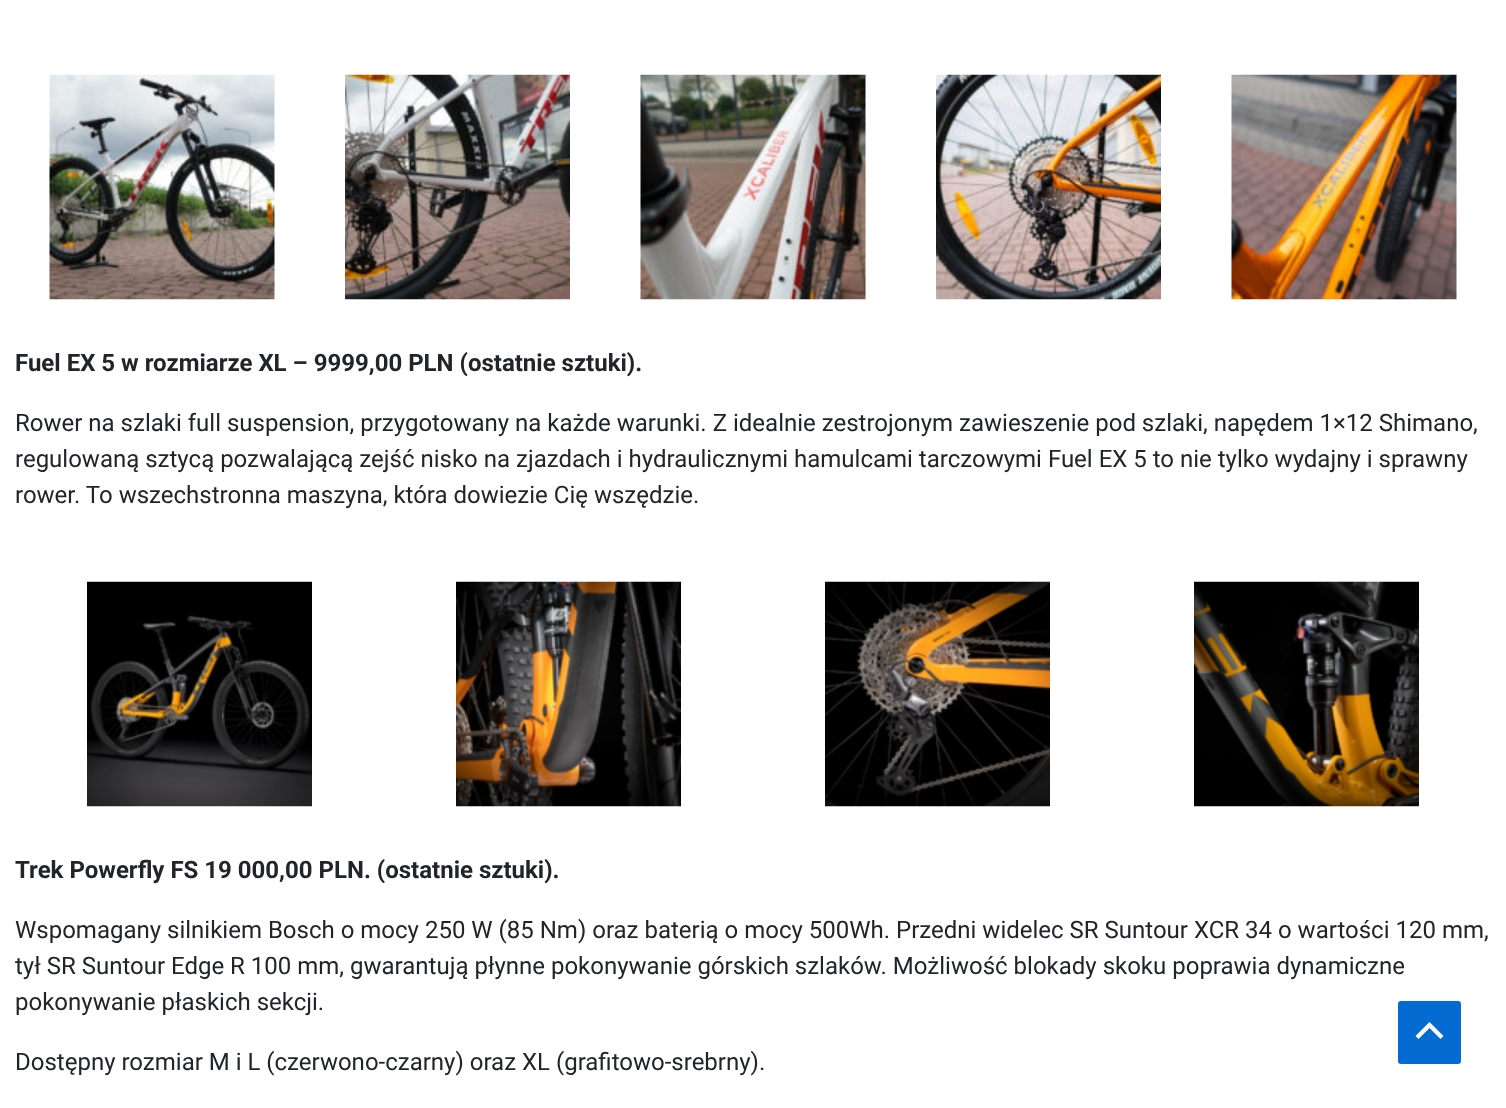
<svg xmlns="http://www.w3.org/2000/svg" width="1506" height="1108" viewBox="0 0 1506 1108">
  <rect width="100%" height="100%" fill="rgb(255,255,255)"/>
  <image x="49" y="74" width="226" height="226" href="pic1.png"/>
  <image x="345" y="74" width="225" height="226" href="pic2.png"/>
  <image x="640" y="74" width="226" height="226" href="pic3.png"/>
  <image x="936" y="74" width="225" height="226" href="pic4.png"/>
  <image x="1231" y="74" width="226" height="226" href="pic5.png"/>
  <text x="15" y="371" font-family="Roboto" font-size="24" font-weight="bold" fill="rgb(33,37,41)">Fuel EX 5 w rozmiarze XL – 9999,00 PLN (ostatnie sztuki).</text>
  <g font-family="Roboto" font-size="24" fill="rgb(33,37,41)">
    <text>
      <tspan x="15" y="431">Rower na szlaki full suspension, przygotowany na każde warunki. Z idealnie zestrojonym zawieszenie pod szlaki, napędem 1×12 Shimano,</tspan>
      <tspan x="15" y="467">regulowaną sztycą pozwalającą zejść nisko na zjazdach i hydraulicznymi hamulcami tarczowymi Fuel EX 5 to nie tylko wydajny i sprawny</tspan>
      <tspan x="15" y="503">rower. To wszechstronna maszyna, która dowiezie Cię wszędzie.</tspan>
    </text>
  </g>
  <image x="87" y="581" width="225" height="226" href="pic6.png"/>
  <image x="456" y="581" width="225" height="226" href="pic7.png"/>
  <image x="825" y="581" width="225" height="226" href="pic8.png"/>
  <image x="1194" y="581" width="225" height="226" href="pic9.png"/>
  <text x="15" y="878" font-family="Roboto" font-size="24" font-weight="bold" fill="rgb(33,37,41)">Trek Powerfly FS 19 000,00 PLN. (ostatnie sztuki).</text>
  <g font-family="Roboto" font-size="24" fill="rgb(33,37,41)">
    <text>
      <tspan x="15" y="938">Wspomagany silnikiem Bosch o mocy 250 W (85 Nm) oraz baterią o mocy 500Wh. Przedni widelec SR Suntour XCR 34 o wartości 120 mm,</tspan>
      <tspan x="15" y="974">tył SR Suntour Edge R 100 mm, gwarantują płynne pokonywanie górskich szlaków. Możliwość blokady skoku poprawia dynamiczne</tspan>
      <tspan x="15" y="1010">pokonywanie płaskich sekcji.</tspan>
    </text>
    <text x="15" y="1070">Dostępny rozmiar M i L (czerwono-czarny) oraz XL (grafitowo-srebrny).</text>
  </g>
  <rect x="1398" y="1001" width="63" height="63" rx="3" fill="rgb(4,107,210)"/>
  <path d="M1443.5 1036L1429.5 1022L1415.5 1036L1418.5 1039L1429.5 1028L1440.5 1039Z" fill="rgb(255,255,255)"/>
</svg>
